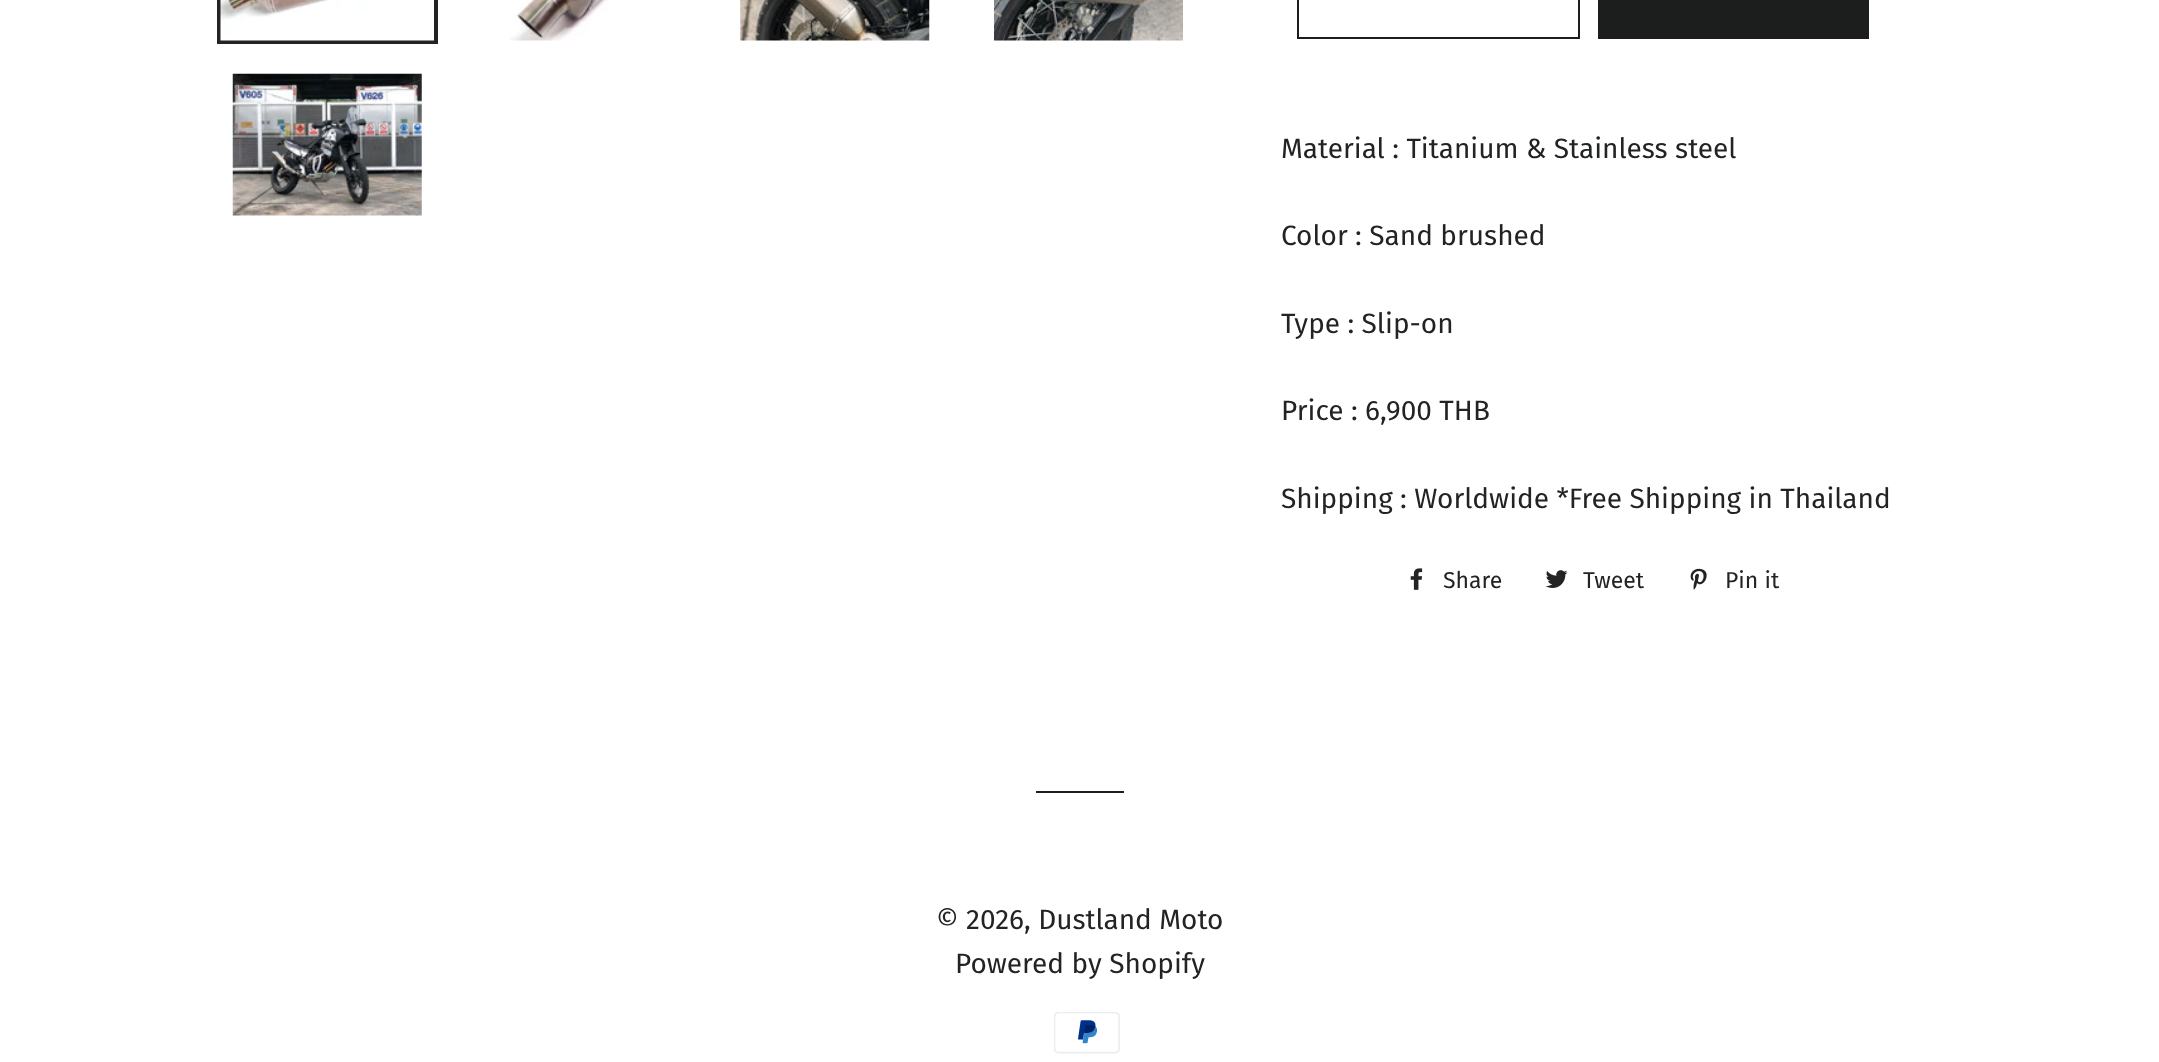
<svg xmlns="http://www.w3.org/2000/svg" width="2159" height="1062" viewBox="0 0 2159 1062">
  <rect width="100%" height="100%" fill="rgb(255,255,255)"/>
  <rect x="219" y="-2" width="217" height="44" fill="none" stroke="rgb(34,35,35)" stroke-width="4"/>
  <image x="220" y="0" width="214" height="41" href="pic1.png"/>
  <image x="509" y="0" width="99" height="41" href="pic2.png"/>
  <image x="740" y="0" width="190" height="41" href="pic3.png"/>
  <image x="994" y="0" width="189" height="41" href="pic4.png"/>
  <image x="232" y="73" width="190" height="143" href="pic5.png"/>
  <rect x="1298" y="-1" width="281" height="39" fill="none" stroke="rgb(28,29,29)" stroke-width="2"/>
  <rect x="1598" y="0" width="271" height="39" fill="rgb(28,29,29)"/>
  <g font-family="Fira Sans" font-size="28" fill="rgb(34,35,35)">
    <text x="1281" y="158">Material : Titanium &amp; Stainless steel</text>
    <text x="1281" y="245">Color : Sand brushed</text>
    <text x="1281" y="333">Type : Slip-on</text>
    <text x="1281" y="420">Price : 6,900 THB</text>
    <text x="1281" y="508">Shipping : Worldwide *Free Shipping in Thailand</text>
  </g>
  <image x="1410" y="568" width="13" height="22" href="pic6.png"/>
  <text x="1443" y="588" font-family="Fira Sans" font-size="23" fill="rgb(34,35,35)">Share</text>
  <image x="1545" y="570" width="23" height="18" href="pic7.png"/>
  <text x="1583" y="588" font-family="Fira Sans" font-size="23" fill="rgb(34,35,35)">Tweet</text>
  <image x="1690" y="568" width="17" height="22" href="pic8.png"/>
  <text x="1725" y="588" font-family="Fira Sans" font-size="23" fill="rgb(34,35,35)">Pin it</text>
  <rect x="1036" y="791" width="88" height="2" fill="rgb(28,29,29)"/>
  <g font-family="Fira Sans" font-size="28" fill="rgb(34,35,35)">
    <text x="936" y="929">© 2026, Dustland Moto</text>
    <text x="955" y="973">Powered by Shopify</text>
  </g>
  <image x="1054" y="1012" width="66" height="42" href="pic9.png"/>
</svg>
